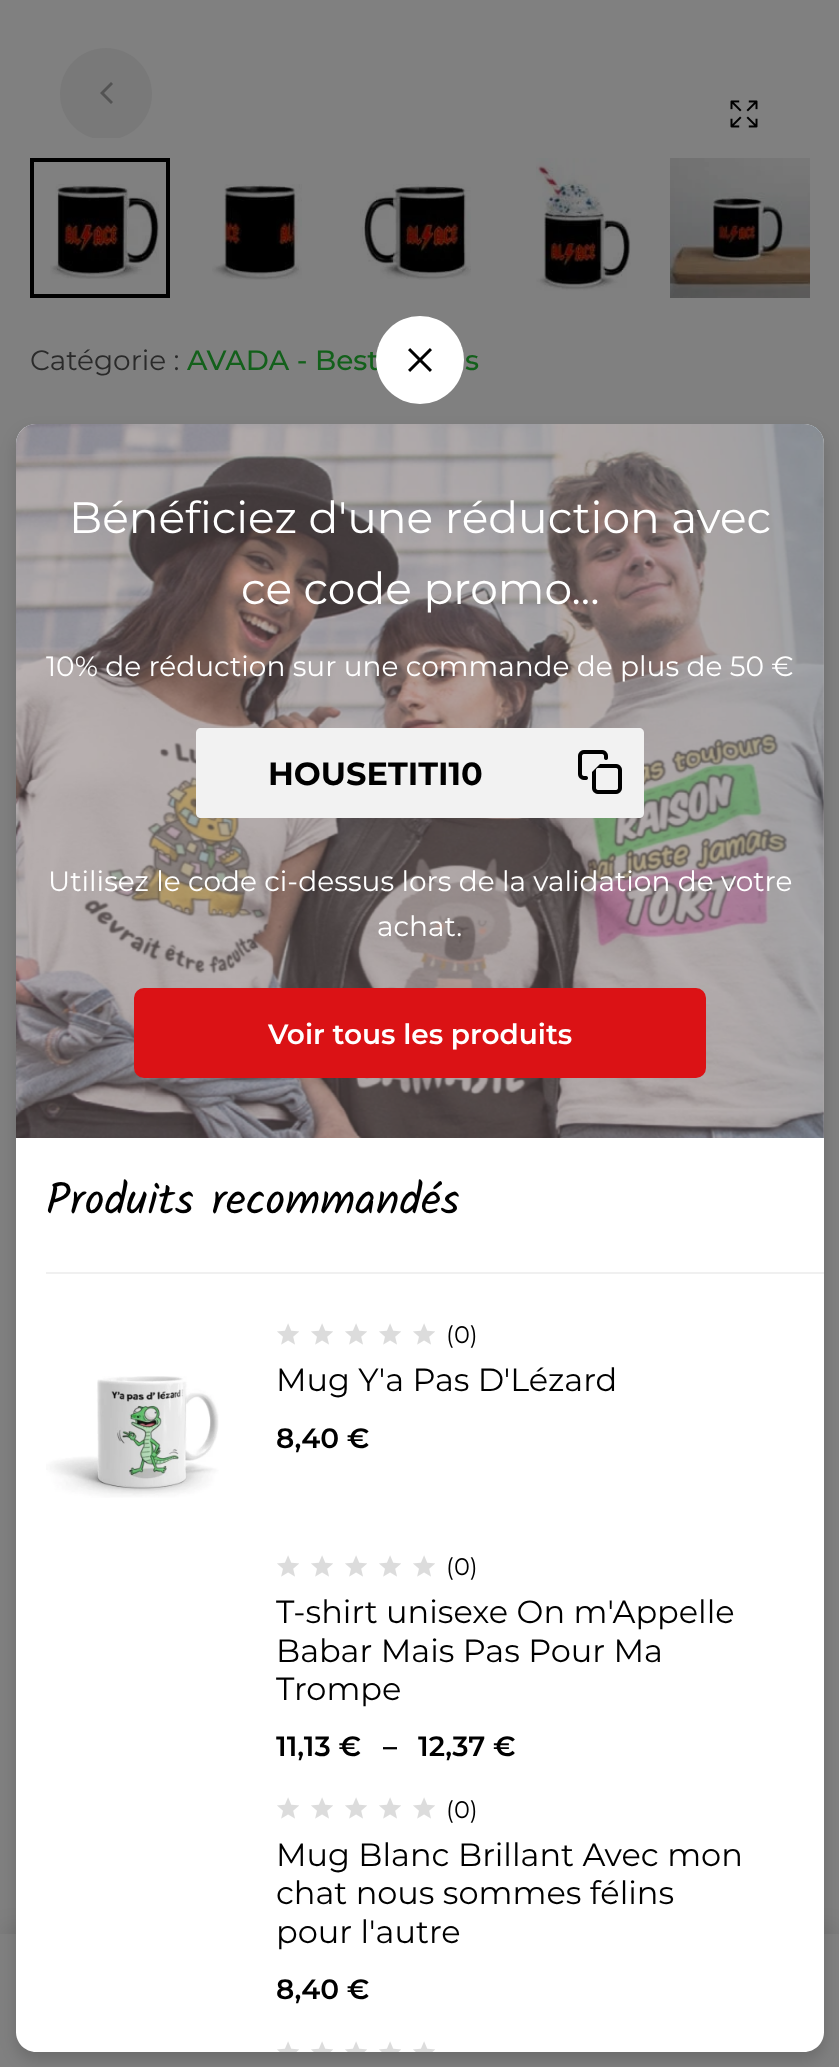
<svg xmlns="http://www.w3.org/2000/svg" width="839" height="2067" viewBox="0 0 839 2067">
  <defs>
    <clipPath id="clip1"><rect x="30" y="48" width="780" height="90"/></clipPath>
  </defs>
  <rect width="100%" height="100%" fill="rgb(128,128,128)"/>
  <g clip-path="url(#clip1)">
    <circle cx="106" cy="94" r="46" fill="rgb(121,121,121)"/>
  </g>
  <path d="M111 104L100 93L111 82L113 84L104 93L113 102Z" fill="rgb(83,83,83)"/>
  <image x="730" y="100" width="28" height="28" href="pic1.png"/>
  <image x="50" y="184" width="109" height="95" href="pic2.png"/>
  <rect x="32" y="160" width="136" height="136" fill="none" stroke="rgb(0,0,0)" stroke-width="4"/>
  <image x="212" y="184" width="90" height="96" href="pic3.png"/>
  <image x="360" y="184" width="111" height="96" href="pic4.png"/>
  <image x="536" y="158" width="95" height="133" href="pic5.png"/>
  <image x="670" y="158" width="140" height="140" href="pic6.png"/>
  <text x="30" y="370" font-family="Montserrat" font-size="28" fill="rgb(42,42,42)">Catégorie :</text>
  <g font-family="Montserrat" font-size="28" font-weight="500" fill="rgb(19,96,27)">
    <text x="187" y="370">AVADA - Best</text>
    <text x="465" y="370">s</text>
  </g>
  <circle cx="420" cy="360" r="44" fill="rgb(255,255,255)"/>
  <image x="408" y="348" width="24" height="24" href="pic7.png"/>
  <rect x="0" y="1926" width="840" height="134" fill="rgba(0,0,0,0.08)" filter="blur(10px)"/>
  <rect x="0" y="1934" width="839" height="133" fill="rgb(128,128,128)"/>
  <rect x="16" y="432" width="808" height="1628" rx="20" fill="rgba(0,0,0,0.16)" filter="blur(8px)"/>
  <path d="M36 424H804C815 424 824 433 824 444V1138H16V444C16 433 25 424 36 424Z" fill="rgb(255,255,255)"/>
  <image x="16" y="424" width="808" height="714" href="pic8.png"/>
  <path d="M36 424H804C815 424 824 433 824 444V1138H16V444C16 433 25 424 36 424Z" fill="rgba(116,100,100,0.5)"/>
  <g font-family="Montserrat" font-size="44" fill="rgb(255,255,255)">
    <text x="69" y="533">Bénéficiez d'une réduction avec</text>
    <text x="241" y="604">ce code promo...</text>
  </g>
  <text x="46" y="676" font-family="Montserrat" font-size="28" fill="rgb(255,255,255)">10% de réduction sur une commande de plus de 50 €</text>
  <path d="M201 728H554V818H201C198 818 196 816 196 813V733C196 730 198 728 201 728Z" fill="rgb(242,242,242)"/>
  <text x="268" y="785" font-family="Montserrat" font-size="32" font-weight="bold" fill="rgb(0,0,0)">HOUSETITI10</text>
  <path d="M554 728H639C642 728 644 730 644 733V813C644 816 642 818 639 818H554Z" fill="rgb(242,242,242)"/>
  <image x="578" y="750" width="44" height="44" href="pic9.png"/>
  <g font-family="Montserrat" font-size="28" fill="rgb(255,255,255)">
    <text x="48" y="891">Utilisez le code ci-dessus lors de la validation de votre</text>
    <text x="377" y="936">achat.</text>
  </g>
  <rect x="135" y="989" width="570" height="88" rx="9" fill="rgb(219,18,21)" stroke="rgb(219,18,21)" stroke-width="2"/>
  <text x="268" y="1044" font-family="Montserrat" font-size="28" font-weight="600" fill="rgb(255,255,255)">Voir tous les produits</text>
  <path d="M16 1138H824V2032C824 2043 815 2052 804 2052H36C25 2052 16 2043 16 2032Z" fill="rgb(255,255,255)"/>
  <rect x="46" y="1272" width="778" height="2" fill="rgb(240,240,240)"/>
  <text x="46" y="1214" font-family="Kalam" font-size="44" fill="rgb(0,0,0)">Produits recommandés</text>
  <image x="46" y="1376" width="173" height="122" href="pic10.png"/>
  <image x="277" y="1323" width="22" height="22" href="pic11.png"/>
  <image x="311" y="1323" width="22" height="22" href="pic11.png"/>
  <image x="345" y="1323" width="22" height="22" href="pic11.png"/>
  <image x="379" y="1323" width="22" height="22" href="pic11.png"/>
  <image x="413" y="1323" width="22" height="22" href="pic11.png"/>
  <text x="446" y="1343" font-family="Montserrat" font-size="24" fill="rgb(0,0,0)">(0)</text>
  <text x="276" y="1391" font-family="Montserrat" font-size="32" fill="rgb(0,0,0)">Mug Y'a Pas D'Lézard</text>
  <text x="276" y="1448" font-family="Montserrat" font-size="28" font-weight="600" fill="rgb(0,0,0)">8,40 €</text>
  <image x="277" y="1555" width="22" height="22" href="pic11.png"/>
  <image x="311" y="1555" width="22" height="22" href="pic11.png"/>
  <image x="345" y="1555" width="22" height="22" href="pic11.png"/>
  <image x="379" y="1555" width="22" height="22" href="pic11.png"/>
  <image x="413" y="1555" width="22" height="22" href="pic11.png"/>
  <text x="446" y="1575" font-family="Montserrat" font-size="24" fill="rgb(0,0,0)">(0)</text>
  <g font-family="Montserrat" font-size="32" fill="rgb(0,0,0)">
    <text>
      <tspan x="276" y="1623">T-shirt unisexe On m'Appelle</tspan>
      <tspan x="276" y="1662">Babar Mais Pas Pour Ma</tspan>
      <tspan x="276" y="1700">Trompe</tspan>
    </text>
  </g>
  <g font-family="Montserrat" font-size="28" font-weight="600" fill="rgb(0,0,0)">
    <text x="276" y="1756">11,13 €</text>
    <text x="383" y="1756">–</text>
    <text x="418" y="1756">12,37 €</text>
  </g>
  <image x="277" y="1797" width="22" height="22" href="pic11.png"/>
  <image x="311" y="1797" width="22" height="22" href="pic11.png"/>
  <image x="345" y="1797" width="22" height="22" href="pic11.png"/>
  <image x="379" y="1797" width="22" height="22" href="pic11.png"/>
  <image x="413" y="1797" width="22" height="22" href="pic11.png"/>
  <text x="446" y="1818" font-family="Montserrat" font-size="24" fill="rgb(0,0,0)">(0)</text>
  <g font-family="Montserrat" font-size="32" fill="rgb(0,0,0)">
    <text>
      <tspan x="276" y="1866">Mug Blanc Brillant Avec mon</tspan>
      <tspan x="276" y="1904">chat nous sommes félins</tspan>
      <tspan x="276" y="1943">pour l'autre</tspan>
    </text>
  </g>
  <text x="276" y="1999" font-family="Montserrat" font-size="28" font-weight="600" fill="rgb(0,0,0)">8,40 €</text>
  <image x="277" y="2041" width="22" height="11" href="pic12.png"/>
  <image x="311" y="2041" width="22" height="11" href="pic12.png"/>
  <image x="345" y="2041" width="22" height="11" href="pic12.png"/>
  <image x="379" y="2041" width="22" height="11" href="pic12.png"/>
  <image x="413" y="2041" width="22" height="11" href="pic12.png"/>
</svg>
